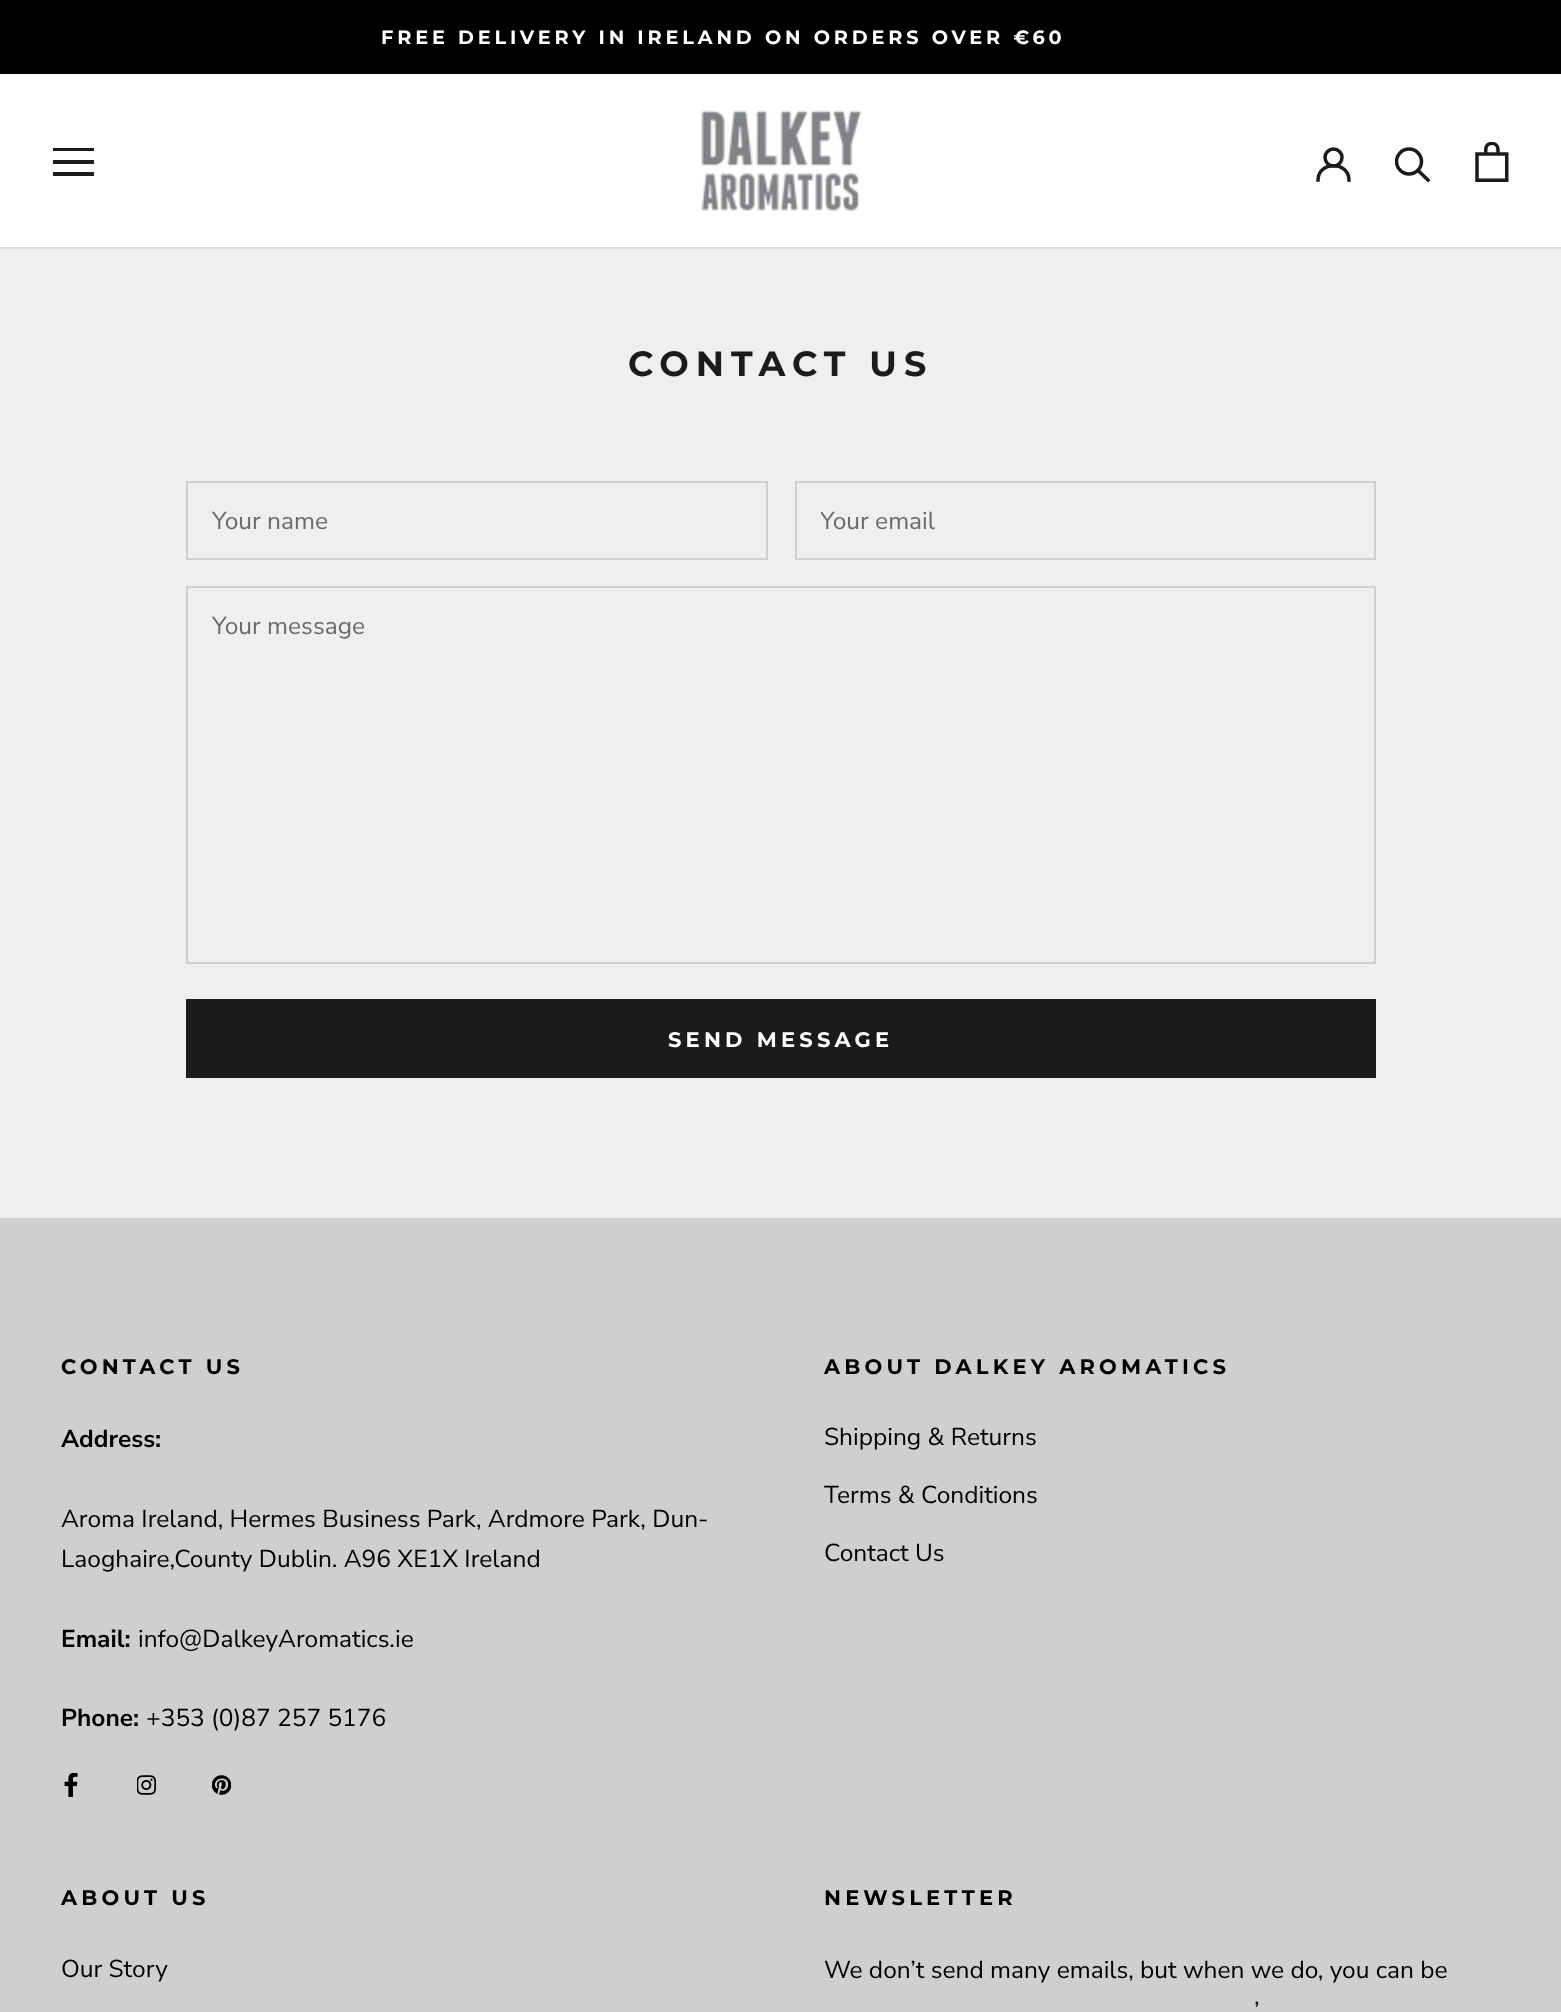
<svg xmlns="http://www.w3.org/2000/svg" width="1561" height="2012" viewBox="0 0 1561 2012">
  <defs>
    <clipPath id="clip1"><rect x="53" y="147" width="42" height="30"/></clipPath>
    <clipPath id="clip2"><rect x="1395" y="147" width="37" height="37"/></clipPath>
    <clipPath id="clip3"><rect x="821" y="504" width="528" height="33"/></clipPath>
  </defs>
  <rect width="100%" height="100%" fill="rgb(239,239,239)"/>
  <rect x="0" y="0" width="1561" height="74" fill="rgb(0,0,0)"/>
  <text x="381" y="44" font-family="Montserrat" font-size="19.25" font-weight="bold" letter-spacing="3.85" fill="rgb(255,255,255)">FREE DELIVERY IN IRELAND ON ORDERS OVER €60</text>
  <rect x="0" y="74" width="1561" height="173" fill="rgb(255,255,255)"/>
  <rect x="0" y="247" width="1561" height="2" fill="rgb(221,221,221)"/>
  <g clip-path="url(#clip1)">
    <path d="M52 176V172H94V176ZM52 160H94V164H52ZM52 148H94V151H52Z" fill="rgb(28,27,27)"/>
  </g>
  <image x="701" y="110" width="161" height="102" href="pic1.png"/>
  <path d="M1318 180C1318 161 1349 161 1349 180" fill="none" stroke="rgb(28,27,27)" stroke-width="3.5" stroke-linecap="square"/>
  <circle cx="1333.5" cy="157.5" r="8.5" fill="none" stroke="rgb(28,27,27)" stroke-width="3.5"/>
  <path d="M1428 180L1418 170.5" fill="none" stroke="rgb(28,27,27)" stroke-width="3.5" stroke-linecap="square"/>
  <g clip-path="url(#clip2)">
    <circle cx="1409" cy="161.5" r="12.5" fill="none" stroke="rgb(28,27,27)" stroke-width="3.5"/>
  </g>
  <image x="1475" y="142" width="34" height="40" href="pic2.png"/>
  <text x="628" y="376" font-family="Montserrat" font-size="35" font-weight="bold" letter-spacing="7" fill="rgb(28,27,27)">CONTACT US</text>
  <rect x="187" y="482" width="580" height="77" fill="none" stroke="rgb(207,207,207)" stroke-width="2"/>
  <text x="212" y="529" font-family="Nunito Sans" font-size="24.5" fill="rgb(106,106,106)">Your name</text>
  <rect x="796" y="482" width="579" height="77" fill="none" stroke="rgb(207,207,207)" stroke-width="2"/>
  <g clip-path="url(#clip3)">
    <text x="820" y="529" font-family="Nunito Sans" font-size="24.5" fill="rgb(106,106,106)">Your email</text>
  </g>
  <rect x="187" y="587" width="1188" height="376" fill="none" stroke="rgb(207,207,207)" stroke-width="2"/>
  <text x="212" y="634" font-family="Nunito Sans" font-size="24.5" fill="rgb(106,106,106)">Your message</text>
  <rect x="187" y="1000" width="1188" height="77" fill="none" stroke="rgb(28,27,27)" stroke-width="2"/>
  <rect x="188" y="1001" width="1186" height="75" fill="rgb(28,27,27)"/>
  <text x="668" y="1047" font-family="Montserrat" font-size="21" font-weight="bold" letter-spacing="4.2" fill="rgb(255,255,255)">SEND MESSAGE</text>
  <rect x="0" y="1218" width="1561" height="794" fill="rgb(207,207,207)"/>
  <text x="61" y="1374" font-family="Montserrat" font-size="21" font-weight="bold" letter-spacing="4.2" fill="rgb(0,0,0)">CONTACT US</text>
  <text x="61" y="1447" font-family="Nunito Sans" font-size="24.5" font-weight="bold" fill="rgb(0,0,0)">Address:</text>
  <g font-family="Nunito Sans" font-size="24.5" fill="rgb(0,0,0)">
    <text>
      <tspan x="61" y="1527">Aroma Ireland, Hermes Business Park, Ardmore Park, Dun-</tspan>
      <tspan x="61" y="1567">Laoghaire,County Dublin. A96 XE1X Ireland</tspan>
    </text>
  </g>
  <text x="61" y="1647" font-family="Nunito Sans" font-size="24.5" font-weight="bold" fill="rgb(0,0,0)">Email:</text>
  <text x="138" y="1647" font-family="Nunito Sans" font-size="24.5" fill="rgb(0,0,0)">info@DalkeyAromatics.ie</text>
  <text x="61" y="1726" font-family="Nunito Sans" font-size="24.5" font-weight="bold" fill="rgb(0,0,0)">Phone:</text>
  <text x="146" y="1726" font-family="Nunito Sans" font-size="24.5" fill="rgb(0,0,0)">+353 (0)87 257 5176</text>
  <image x="64" y="1773" width="14" height="24" href="pic3.png"/>
  <image x="137" y="1775" width="19" height="20" href="pic4.png"/>
  <image x="212" y="1775" width="19" height="20" href="pic5.png"/>
  <text x="824" y="1374" font-family="Montserrat" font-size="21" font-weight="bold" letter-spacing="4.2" fill="rgb(0,0,0)">ABOUT DALKEY AROMATICS</text>
  <g font-family="Nunito Sans" font-size="24.5" fill="rgb(0,0,0)">
    <text x="824" y="1445">Shipping &amp; Returns</text>
    <text x="824" y="1503">Terms &amp; Conditions</text>
    <text x="824" y="1561">Contact Us</text>
  </g>
  <text x="61" y="1905" font-family="Montserrat" font-size="21" font-weight="bold" letter-spacing="4.2" fill="rgb(0,0,0)">ABOUT US</text>
  <text x="61" y="1977" font-family="Nunito Sans" font-size="24.5" fill="rgb(0,0,0)">Our Story</text>
  <text x="824" y="1905" font-family="Montserrat" font-size="21" font-weight="bold" letter-spacing="4.2" fill="rgb(0,0,0)">NEWSLETTER</text>
  <g font-family="Nunito Sans" font-size="24.5" fill="rgb(0,0,0)">
    <text x="824" y="1978">We don’t send many emails, but when we do, you can be</text>
    <text x="1254" y="2019">’</text>
  </g>
</svg>
